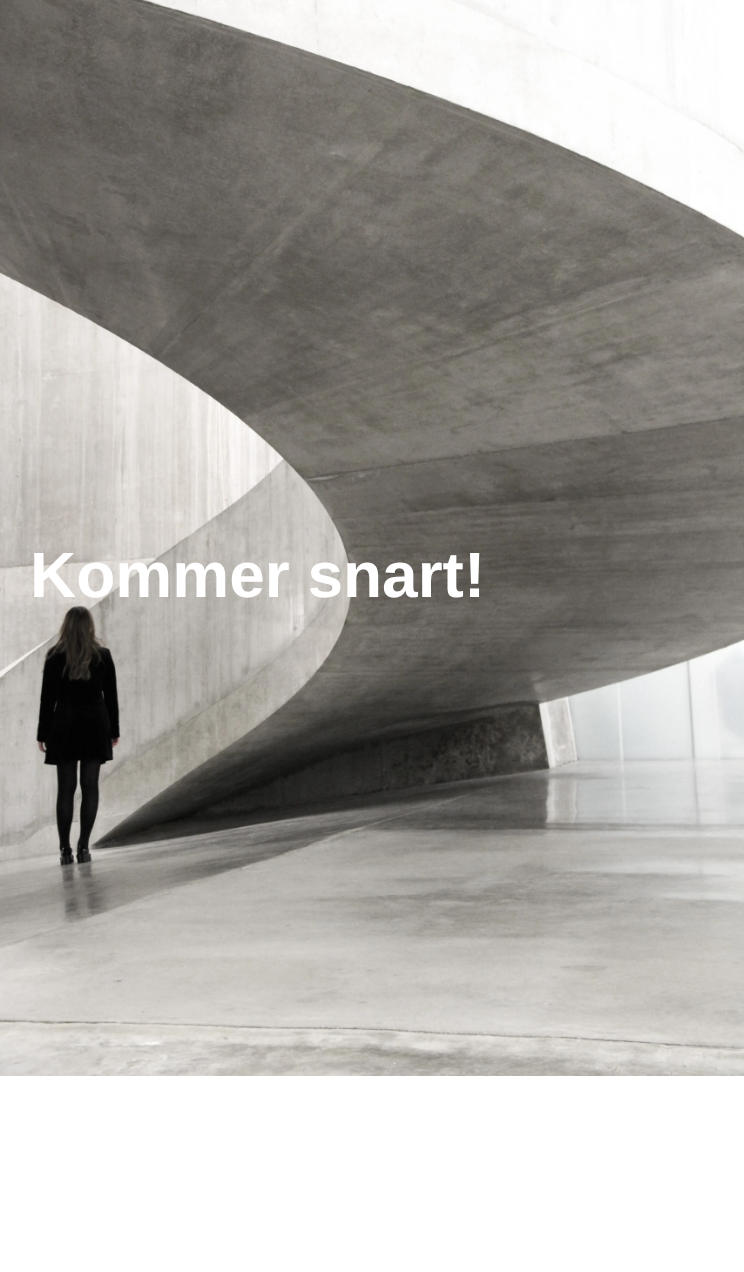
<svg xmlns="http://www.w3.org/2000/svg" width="744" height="1272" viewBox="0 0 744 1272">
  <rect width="100%" height="100%" fill="rgb(255,255,255)"/>
  <image x="0" y="0" width="744" height="1076" href="pic1.png"/>
  <text x="30" y="597" font-family="Liberation Sans" font-size="64" font-weight="bold" fill="rgb(255,255,255)">Kommer snart!</text>
</svg>
